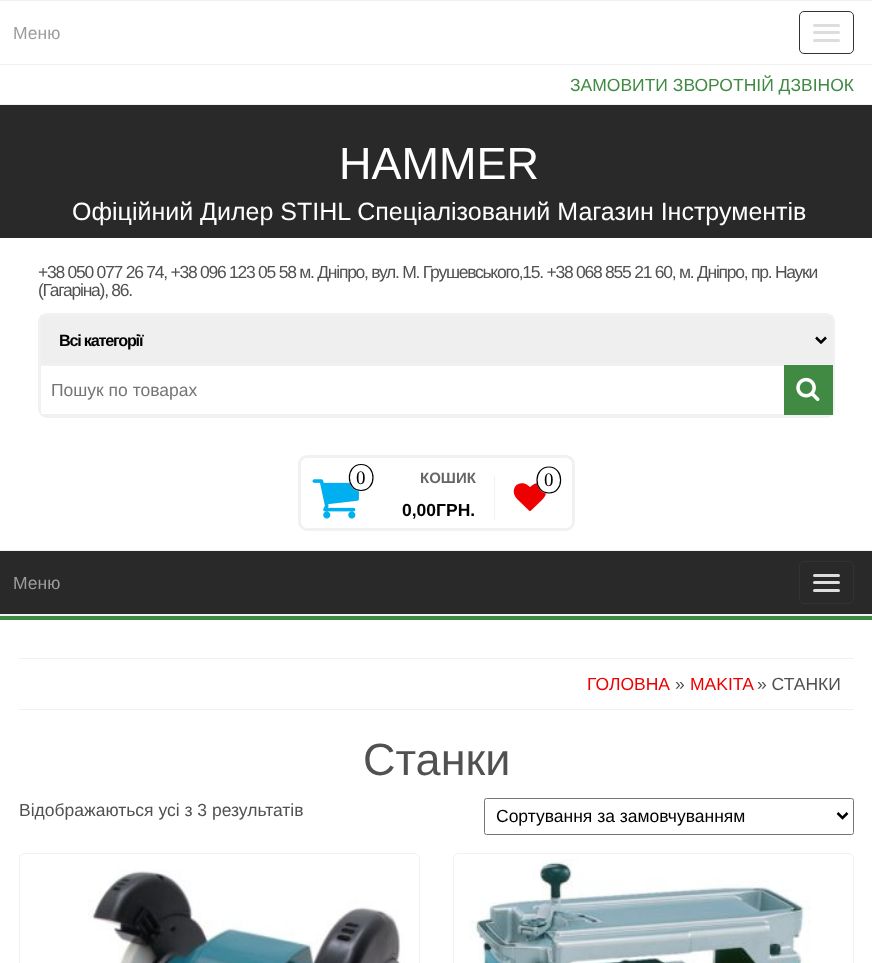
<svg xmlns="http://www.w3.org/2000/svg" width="872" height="963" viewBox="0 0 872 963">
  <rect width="100%" height="100%" fill="rgb(255,255,255)"/>
  <rect x="0" y="616" width="872" height="4" fill="rgb(65,138,67)"/>
  <rect x="0" y="104" width="872" height="1" fill="rgb(241,241,241)"/>
  <rect x="0" y="0" width="872" height="1" fill="rgb(241,241,241)"/>
  <rect x="0" y="64" width="872" height="1" fill="rgb(241,241,241)"/>
  <text x="13" y="39" font-family="Liberation Sans" font-size="17.5" fill="rgb(157,157,157)">Меню</text>
  <rect x="799.5" y="11.5" width="54" height="42" rx="4.5" fill="none" stroke="rgb(51,51,51)"/>
  <rect x="813" y="24" width="27" height="3" rx="1.5" fill="rgb(221,221,221)"/>
  <rect x="813" y="31" width="27" height="3" rx="1.5" fill="rgb(221,221,221)"/>
  <rect x="813" y="39" width="27" height="3" rx="1.5" fill="rgb(221,221,221)"/>
  <text x="570" y="91" font-family="Liberation Sans" font-size="17.5" fill="rgb(65,138,67)">ЗАМОВИТИ ЗВОРОТНІЙ ДЗВІНОК</text>
  <rect x="0" y="105" width="872" height="509" fill="rgb(41,41,41)"/>
  <rect x="0" y="614" width="872" height="2" fill="rgb(241,241,241)"/>
  <text x="339" y="179" font-family="Liberation Sans" font-size="45" fill="rgb(255,255,255)">HAMMER</text>
  <text x="72" y="220" font-family="Liberation Sans" font-size="25" fill="rgb(255,255,255)">Офіційний Дилер STIHL Спеціалізований Магазин Інструментів</text>
  <rect x="0" y="238" width="872" height="312" fill="rgb(255,255,255)"/>
  <g font-family="Liberation Sans" font-size="17.5" letter-spacing="-1.25" fill="rgb(81,81,81)">
    <text>
      <tspan x="38" y="278">+38 050 077 26 74, +38 096 123 05 58 м. Днiпро, вул. М. Грушевського,15. +38 068 855 21 60, м. Днiпро, пр. Науки</tspan>
      <tspan x="38" y="296">(Гагаріна), 86.</tspan>
    </text>
  </g>
  <rect x="39.5" y="314.5" width="794" height="102" rx="7.5" fill="none" stroke="rgb(241,241,241)" stroke-width="3"/>
  <rect x="40.5" y="315.5" width="792" height="49" fill="rgb(239,239,239)" stroke="rgb(241,241,241)"/>
  <path d="M816 337.5L821 342.5L826 337.5" fill="none" stroke="rgb(0,0,0)" stroke-width="2.5"/>
  <text x="59" y="346" font-family="Liberation Sans" font-size="16.25" font-weight="bold" letter-spacing="-1.25" fill="rgb(0,0,0)">Всі категорії</text>
  <rect x="41" y="410" width="3" height="4" fill="rgb(255,255,255)"/>
  <rect x="40.5" y="365.5" width="792" height="49" fill="none" stroke="rgb(241,241,241)"/>
  <text x="51" y="396" font-family="Liberation Sans" font-size="17.5" fill="rgb(117,117,117)">Пошук по товарах</text>
  <rect x="784" y="365" width="49" height="50" fill="rgb(65,138,67)"/>
  <image x="796" y="377" width="24" height="25" href="pic1.png"/>
  <rect x="299.5" y="456.5" width="274" height="73" rx="7.5" fill="none" stroke="rgb(241,241,241)" stroke-width="3"/>
  <image x="312" y="479" width="47" height="40" href="pic2.png"/>
  <ellipse cx="361" cy="477.5" rx="12.5" ry="14" fill="rgb(255,255,255)"/>
  <path d="M361 464.5C377 464.5 377 490.5 361 490.5C345.5 490.5 345.5 464.5 361 464.5Z" fill="none" stroke="rgb(0,0,0)" stroke-width="1.2"/>
  <text x="356" y="484" font-family="Liberation Serif" font-size="19" fill="rgb(0,0,0)">0</text>
  <text x="420" y="483" font-family="Liberation Sans" font-size="15" font-weight="bold" fill="rgb(102,102,102)">КОШИК</text>
  <text x="402" y="516" font-family="Liberation Sans" font-size="17.5" font-weight="bold" fill="rgb(0,0,0)">0,00ГРН.</text>
  <rect x="494" y="476" width="1" height="44" fill="rgb(241,241,241)"/>
  <image x="513" y="483" width="34" height="28" href="pic3.png"/>
  <ellipse cx="549" cy="480" rx="12.5" ry="14" fill="rgb(255,255,255)"/>
  <path d="M549 467C564.5 467 564.5 493 549 493C533 493 533 467 549 467Z" fill="none" stroke="rgb(0,0,0)" stroke-width="1.2"/>
  <text x="544" y="486" font-family="Liberation Serif" font-size="19" fill="rgb(0,0,0)">0</text>
  <rect x="0" y="550" width="872" height="1" fill="rgb(241,241,241)"/>
  <text x="13" y="589" font-family="Liberation Sans" font-size="17.5" fill="rgb(157,157,157)">Меню</text>
  <rect x="799.5" y="561.5" width="54" height="42" rx="4.5" fill="none" stroke="rgb(51,51,51)"/>
  <rect x="813" y="574" width="27" height="3" rx="1.5" fill="rgb(221,221,221)"/>
  <rect x="813" y="581" width="27" height="3" rx="1.5" fill="rgb(221,221,221)"/>
  <rect x="813" y="589" width="27" height="3" rx="1.5" fill="rgb(221,221,221)"/>
  <rect x="19" y="658" width="835" height="1" fill="rgb(241,241,241)"/>
  <rect x="19" y="709" width="835" height="1" fill="rgb(241,241,241)"/>
  <text x="587" y="690" font-family="Liberation Sans" font-size="17.5" fill="rgb(239,0,0)">ГОЛОВНА</text>
  <text x="675" y="690" font-family="Liberation Sans" font-size="17.5" fill="rgb(81,81,81)">»</text>
  <text x="690" y="690" font-family="Liberation Sans" font-size="17.5" fill="rgb(239,0,0)">MAKITA</text>
  <text x="757" y="690" font-family="Liberation Sans" font-size="17.5" fill="rgb(81,81,81)">» СТАНКИ</text>
  <text x="363" y="775" font-family="Liberation Sans" font-size="45" fill="rgb(81,81,81)">Станки</text>
  <text x="19" y="816" font-family="Liberation Sans" font-size="17.5" fill="rgb(81,81,81)">Відображаються усі з 3 результатів</text>
  <rect x="484.5" y="798.5" width="369" height="36" rx="2" fill="none" stroke="rgb(118,118,118)"/>
  <path d="M837.5 813L842.5 818L847.5 813" fill="none" stroke="rgb(0,0,0)" stroke-width="2.5"/>
  <text x="496" y="822" font-family="Liberation Sans" font-size="17.5" fill="rgb(0,0,0)">Сортування за замовчуванням</text>
  <rect x="19.5" y="853.5" width="400" height="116" rx="5.5" fill="none" stroke="rgb(241,241,241)"/>
  <image x="88" y="869" width="317" height="94" href="pic4.png"/>
  <rect x="453.5" y="853.5" width="400" height="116" rx="5.5" fill="none" stroke="rgb(241,241,241)"/>
  <image x="469" y="859" width="342" height="104" href="pic5.png"/>
</svg>
